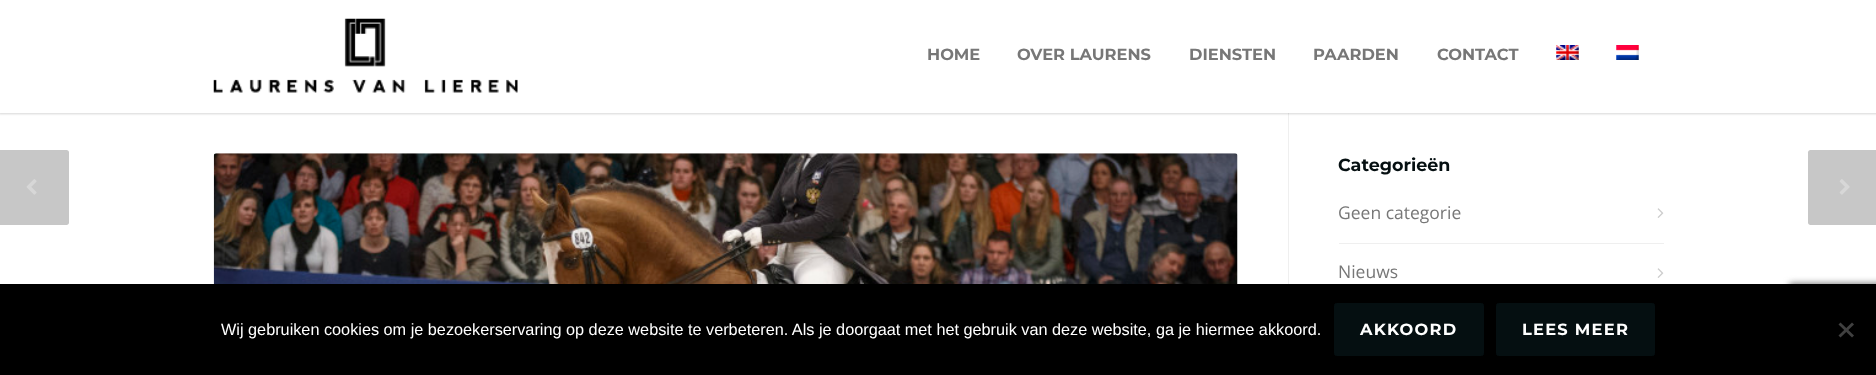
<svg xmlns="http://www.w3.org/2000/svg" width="1876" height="375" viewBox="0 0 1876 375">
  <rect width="100%" height="100%" fill="rgb(255,255,255)"/>
  <rect x="1288" y="113" width="1" height="171" fill="rgb(239,239,239)"/>
  <rect x="-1" y="-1" width="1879" height="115" fill="rgba(0,0,0,0.16)" filter="blur(1px)"/>
  <rect x="0" y="0" width="1876" height="113" fill="rgb(255,255,255)"/>
  <image x="213" y="18" width="305" height="75" href="pic1.png"/>
  <g font-family="Montserrat" font-size="16.25" font-weight="bold" fill="rgb(119,119,119)">
    <text x="927" y="60">HOME</text>
    <text x="1017" y="60">OVER LAURENS</text>
    <text x="1189" y="60">DIENSTEN</text>
    <text x="1313" y="60">PAARDEN</text>
    <text x="1437" y="60">CONTACT</text>
  </g>
  <image x="1556" y="45" width="23" height="15" href="pic2.png"/>
  <image x="1616" y="45" width="23" height="15" href="pic3.png"/>
  <path d="M-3 150H66.5C68 150 69 151 69 152.5V222.5C69 224 68 225 66.5 225H-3Z" fill="rgb(199,199,199)"/>
  <image x="26" y="179" width="11" height="16" href="pic4.png"/>
  <path d="M1810.5 150H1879V225H1810.5C1809 225 1808 224 1808 222.5V152.5C1808 151 1809 150 1810.5 150Z" fill="rgb(199,199,199)"/>
  <image x="1839" y="179" width="11" height="16" href="pic5.png"/>
  <image x="213" y="153" width="1025" height="131" href="pic6.png"/>
  <text x="1338" y="171" font-family="Montserrat" font-size="17.5" font-weight="bold" fill="rgb(5,15,17)">Categorieën</text>
  <rect x="1339" y="243" width="325" height="1" fill="rgb(239,239,239)"/>
  <text x="1338" y="219" font-family="Open Sans" font-size="17.5" fill="rgb(119,119,119)">Geen categorie</text>
  <image x="1657" y="208" width="7" height="10" href="pic7.png"/>
  <text x="1338" y="278" font-family="Open Sans" font-size="17.5" fill="rgb(119,119,119)">Nieuws</text>
  <image x="1657" y="268" width="7" height="10" href="pic7.png"/>
  <rect x="1789" y="283" width="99" height="75" rx="2.5" fill="rgb(128,128,128)" filter="blur(3px)"/>
  <rect x="0" y="284" width="1876" height="91" fill="rgb(0,0,0)"/>
  <text x="221" y="335" font-family="Liberation Sans" font-size="16.25" fill="rgb(255,255,255)">Wij gebruiken cookies om je bezoekerservaring op deze website te verbeteren. Als je doorgaat met het gebruik van deze website, ga je hiermee akkoord.</text>
  <rect x="1334.5" y="303.5" width="149" height="52" rx="2" fill="rgb(5,15,17)" stroke="rgb(5,15,17)"/>
  <text x="1360" y="335" font-family="Montserrat" font-size="16.25" font-weight="bold" letter-spacing="1.25" fill="rgb(255,255,255)">AKKOORD</text>
  <rect x="1496.5" y="303.5" width="158" height="52" rx="2" fill="rgb(5,15,17)" stroke="rgb(5,15,17)"/>
  <text x="1522" y="335" font-family="Montserrat" font-size="16.25" font-weight="bold" letter-spacing="1.25" fill="rgb(255,255,255)">LEES MEER</text>
  <path d="M1852 322.5L1854 324.5L1840.5 337.5L1838.5 335.5Z" fill="rgb(64,64,64)"/>
  <path d="M1838.5 324.5L1840.5 322.5L1854 335.5L1852 337.5Z" fill="rgb(64,64,64)"/>
</svg>
